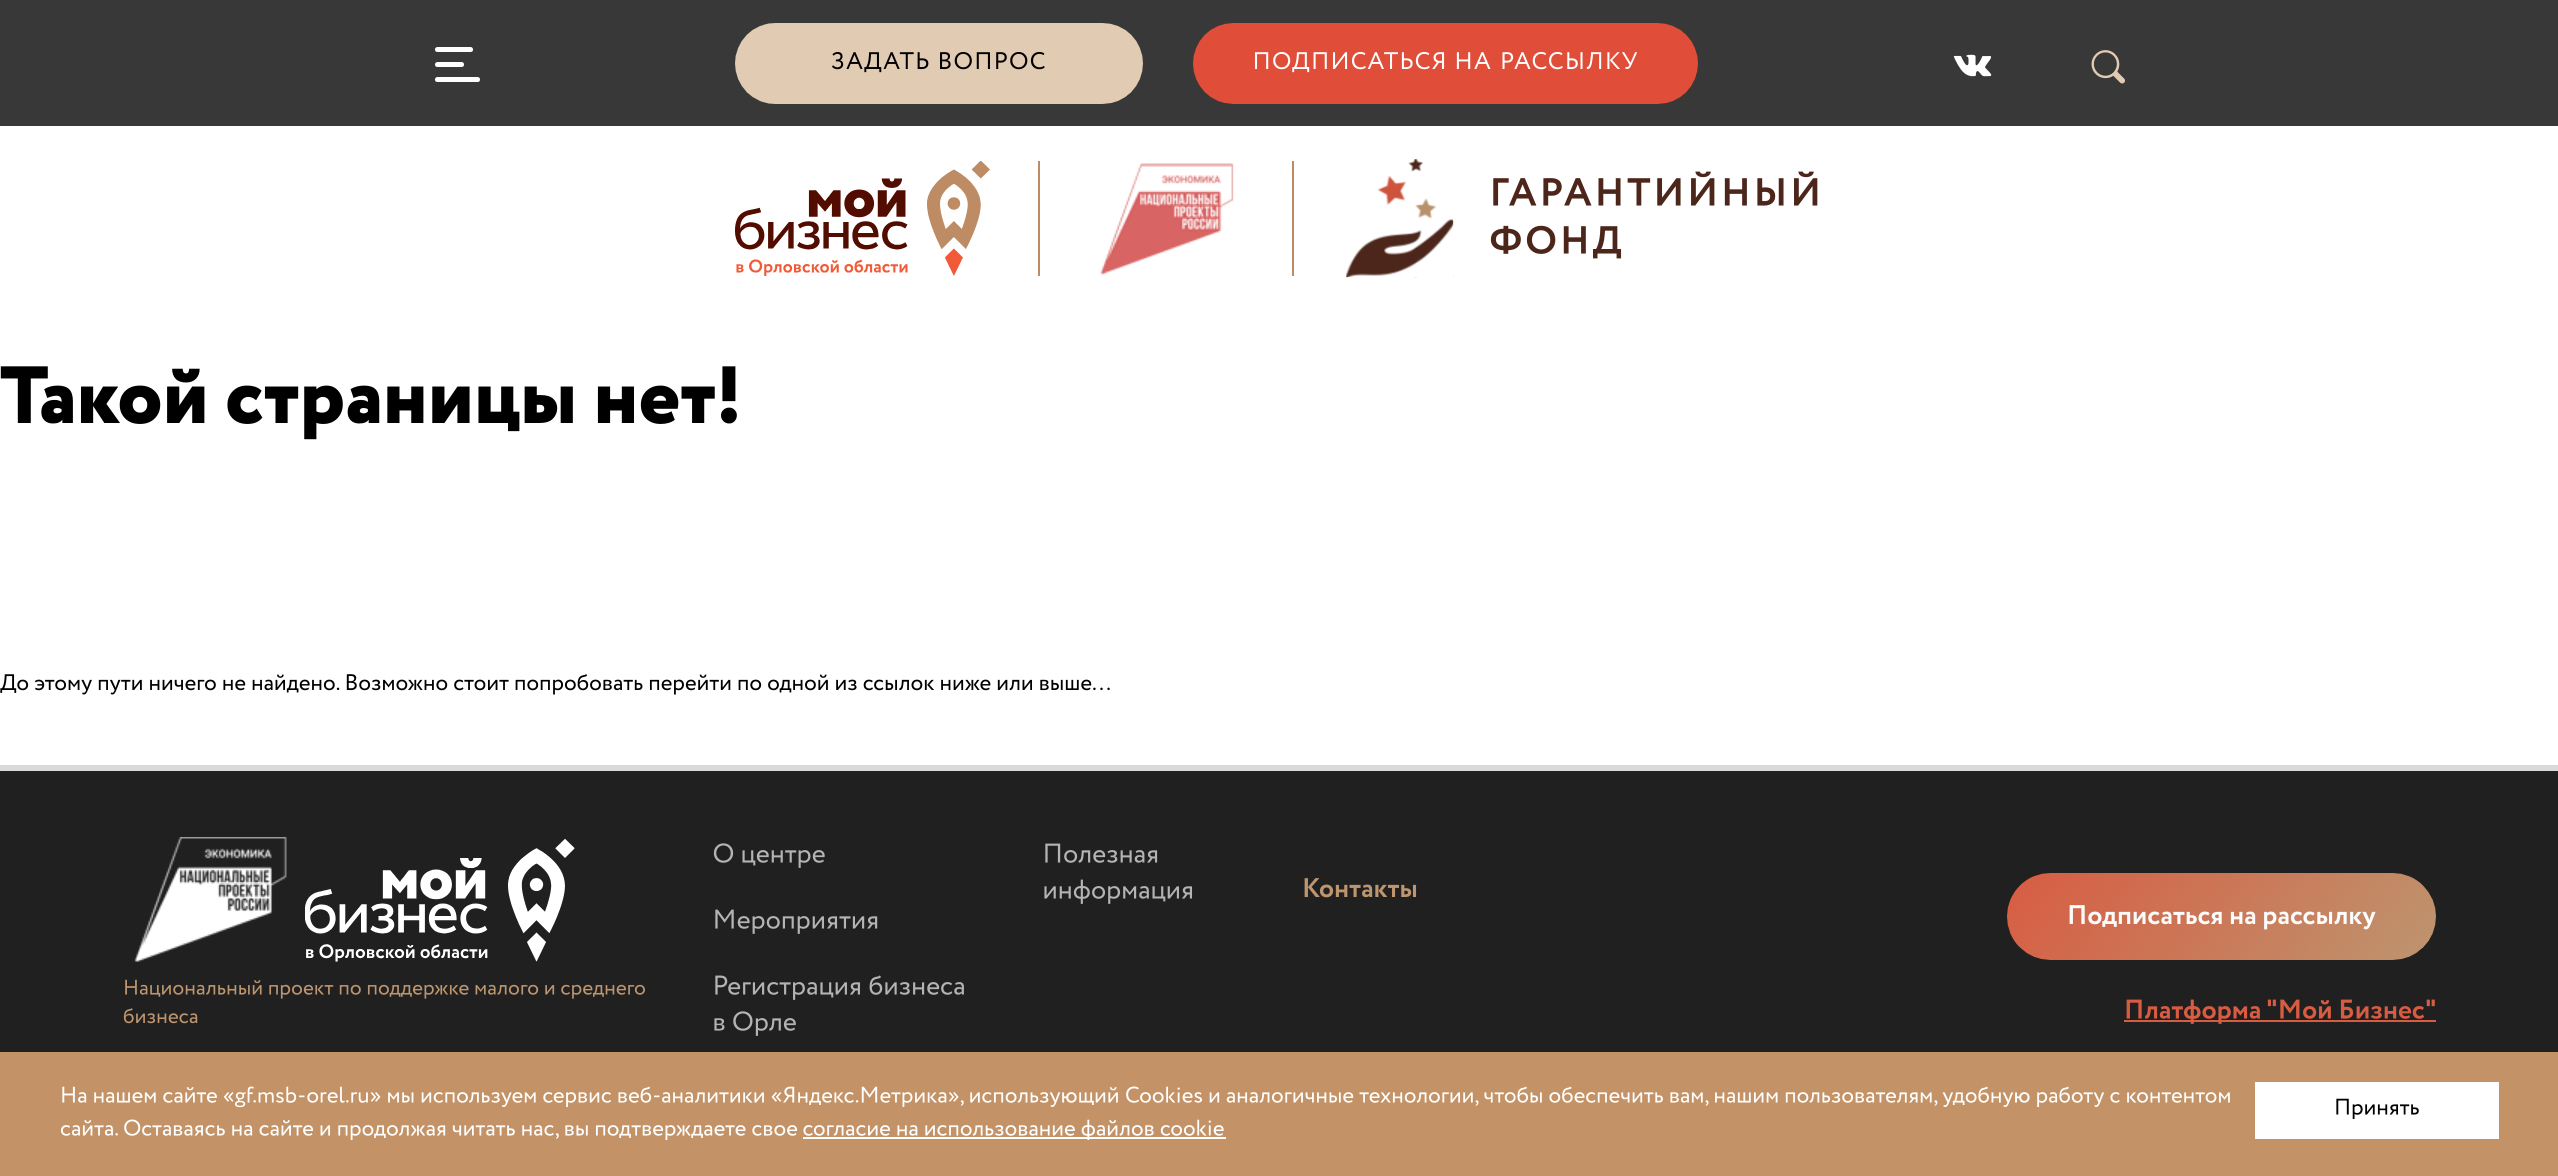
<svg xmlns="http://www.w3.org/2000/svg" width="2558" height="1176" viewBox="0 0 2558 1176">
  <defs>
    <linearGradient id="g1" gradientUnits="userSpaceOnUse" x1="2068" y1="796" x2="2375" y2="1037"><stop offset="0" stop-color="rgb(216,92,66)"/><stop offset="1" stop-color="rgb(189,149,111)"/></linearGradient>
  </defs>
  <rect width="100%" height="100%" fill="rgb(255,255,255)"/>
  <rect x="0" y="0" width="2558" height="126" fill="rgb(56,56,56)"/>
  <rect x="435" y="47" width="38" height="5" rx="2.5" fill="rgb(255,255,255)"/>
  <rect x="435" y="62" width="29" height="5" rx="2.5" fill="rgb(255,255,255)"/>
  <rect x="435" y="77" width="45" height="5" rx="2.5" fill="rgb(255,255,255)"/>
  <rect x="735" y="23" width="408" height="81" rx="40.5" fill="rgb(226,203,179)"/>
  <image x="832" y="52" width="97" height="21" href="pic1.png"/>
  <image x="940" y="52" width="105" height="18" href="pic2.png"/>
  <rect x="1193" y="23" width="505" height="81" rx="40.5" fill="rgb(224,77,57)"/>
  <image x="1255" y="52" width="236" height="21" href="pic3.png"/>
  <image x="1502" y="52" width="136" height="18" href="pic4.png"/>
  <image x="1953" y="54" width="39" height="23" href="pic5.png"/>
  <image x="2091" y="50" width="34" height="34" href="pic6.png"/>
  <rect x="1038" y="161" width="2" height="115" fill="rgb(189,139,100)"/>
  <image x="735" y="161" width="255" height="115" href="pic7.png"/>
  <rect x="1292" y="161" width="2" height="115" fill="rgb(189,139,100)"/>
  <image x="1100" y="163" width="134" height="112" href="pic8.png"/>
  <image x="1346" y="159" width="108" height="119" href="pic9.png"/>
  <image x="1493" y="171" width="325" height="35" href="pic10.png"/>
  <image x="1490" y="225" width="132" height="34" href="pic11.png"/>
  <image x="0" y="366" width="737" height="74" href="pic12.png"/>
  <image x="0" y="674" width="1110" height="21" href="pic13.png"/>
  <rect x="0" y="771" width="2558" height="281" fill="rgb(32,32,32)"/>
  <rect x="0" y="765" width="2558" height="6" fill="rgb(217,217,217)"/>
  <image x="134" y="837" width="153" height="125" href="pic14.png"/>
  <image x="305" y="839" width="270" height="123" href="pic15.png"/>
  <image x="125" y="979" width="520" height="20" href="pic16.png"/>
  <image x="123" y="1008" width="75" height="16" href="pic17.png"/>
  <image x="713" y="843" width="112" height="25" href="pic18.png"/>
  <image x="715" y="909" width="163" height="25" href="pic19.png"/>
  <image x="715" y="975" width="145" height="25" href="pic20.png"/>
  <image x="869" y="975" width="95" height="20" href="pic21.png"/>
  <image x="714" y="1011" width="82" height="25" href="pic22.png"/>
  <image x="1045" y="843" width="113" height="20" href="pic23.png"/>
  <image x="1044" y="879" width="149" height="25" href="pic24.png"/>
  <image x="1304" y="878" width="113" height="20" href="pic25.png"/>
  <rect x="2007" y="873" width="429" height="87" rx="43.5" fill="url(#g1)"/>
  <image x="2069" y="905" width="307" height="25" href="pic26.png"/>
  <rect x="2124" y="1020" width="312" height="2" fill="rgb(216,92,66)"/>
  <image x="2126" y="999" width="309" height="25" href="pic27.png"/>
  <rect x="0" y="1052" width="2558" height="124" fill="rgb(195,147,103)"/>
  <image x="62" y="1086" width="1056" height="22" href="pic28.png"/>
  <image x="1126" y="1086" width="1104" height="21" href="pic29.png"/>
  <image x="60" y="1119" width="738" height="21" href="pic30.png"/>
  <rect x="803" y="1137" width="423" height="2" fill="rgb(255,255,255)"/>
  <image x="803" y="1119" width="421" height="21" href="pic31.png"/>
  <rect x="2255" y="1082" width="244" height="57" fill="rgb(255,255,255)"/>
  <image x="2336" y="1098" width="83" height="21" href="pic32.png"/>
</svg>
